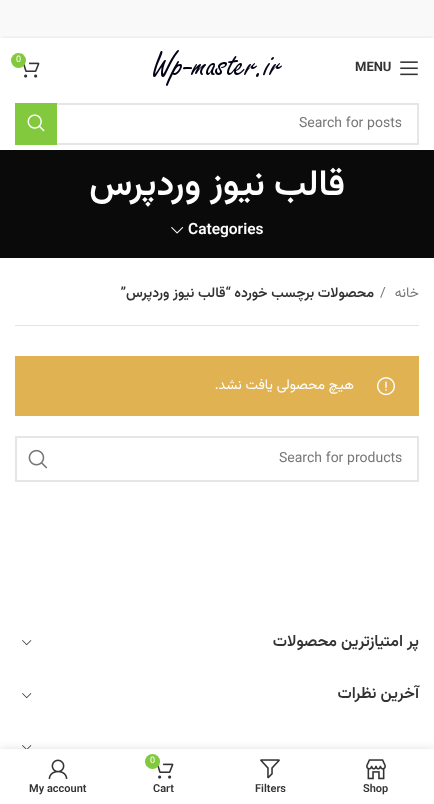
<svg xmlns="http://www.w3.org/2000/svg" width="434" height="804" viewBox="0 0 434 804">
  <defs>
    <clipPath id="clip1"><rect x="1" y="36" width="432" height="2"/></clipPath>
  </defs>
  <rect width="100%" height="100%" fill="rgb(255,255,255)"/>
  <rect x="0" y="0" width="434" height="38" fill="rgb(249,249,249)"/>
  <g clip-path="url(#clip1)">
    <rect x="0" y="39" width="434" height="60" fill="rgba(0,0,0,0.1)" filter="blur(4px)"/>
  </g>
  <image x="153" y="50" width="129" height="36" href="pic1.png"/>
  <image x="23" y="62" width="17" height="16" href="pic2.png"/>
  <circle cx="18.5" cy="60.5" r="7.5" fill="rgb(131,201,62)"/>
  <text x="16" y="62" font-family="Vazirmatn" font-size="9" fill="rgb(255,255,255)">0</text>
  <image x="400" y="61" width="18" height="15" href="pic3.png"/>
  <text x="355" y="71" font-family="Vazirmatn" font-size="13" font-weight="bold" fill="rgb(51,51,51)">MENU</text>
  <rect x="0" y="98" width="434" height="6" fill="rgb(255,255,255)"/>
  <rect x="16" y="104" width="402" height="40" fill="none" stroke="rgb(230,230,230)" stroke-width="2"/>
  <text x="299" y="127" font-family="Vazirmatn" font-size="14" fill="rgb(119,119,119)">Search for posts</text>
  <rect x="15" y="103" width="42" height="42" fill="rgb(131,201,62)"/>
  <image x="27" y="114" width="18" height="18" href="pic4.png"/>
  <rect x="0" y="150" width="434" height="108" fill="rgb(10,10,10)"/>
  <text x="345" y="195" font-family="Vazirmatn" font-size="36" font-weight="600" direction="rtl" fill="rgb(255,255,255)">قالب نیوز وردپرس</text>
  <text x="188" y="234" font-family="Vazirmatn" font-size="15.5" font-weight="600" fill="rgb(255,255,255)">Categories</text>
  <image x="171" y="227" width="13" height="7" href="pic5.png"/>
  <rect x="15" y="325" width="404" height="1" fill="rgb(228,228,228)"/>
  <text x="419" y="297" font-family="Vazirmatn" font-size="14" direction="rtl" fill="rgb(119,119,119)">خانه</text>
  <text x="380" y="297" font-family="Vazirmatn" font-size="14" fill="rgb(119,119,119)">/</text>
  <g font-family="Vazirmatn" font-size="14" font-weight="600" direction="rtl" fill="rgb(51,51,51)">
    <text x="374" y="297">محصولات برچسب خورده</text>
    <text x="231" y="297">“قالب نیوز وردپرس”</text>
  </g>
  <rect x="15" y="356" width="404" height="60" fill="rgb(224,178,82)"/>
  <image x="377" y="377" width="18" height="19" href="pic6.png"/>
  <text x="354" y="389" font-family="Vazirmatn" font-size="14" direction="rtl" fill="rgb(255,255,255)">هیچ محصولی یافت نشد.</text>
  <rect x="16" y="437" width="402" height="44" fill="none" stroke="rgb(230,230,230)" stroke-width="2"/>
  <text x="279" y="462" font-family="Vazirmatn" font-size="14" fill="rgb(119,119,119)">Search for products</text>
  <image x="28" y="449" width="20" height="20" href="pic7.png"/>
  <text x="419" y="646" font-family="Vazirmatn" font-size="16" font-weight="600" direction="rtl" fill="rgb(51,51,51)">پر امتیازترین محصولات</text>
  <image x="22" y="640" width="10" height="6" href="pic8.png"/>
  <text x="419" y="698" font-family="Vazirmatn" font-size="16" font-weight="600" direction="rtl" fill="rgb(51,51,51)">آخرین نظرات</text>
  <image x="22" y="693" width="10" height="6" href="pic8.png"/>
  <image x="22" y="745" width="10" height="4" href="pic9.png"/>
  <rect x="0" y="749" width="434" height="55" fill="rgba(0,0,0,0.12)" filter="blur(4.5px)"/>
  <rect x="0" y="749" width="434" height="55" fill="rgb(255,255,255)"/>
  <image x="366" y="759" width="20" height="21" href="pic10.png"/>
  <text x="363" y="792" font-family="Vazirmatn" font-size="11" font-weight="600" fill="rgb(51,51,51)">Shop</text>
  <image x="260" y="759" width="20" height="20" href="pic11.png"/>
  <text x="255" y="792" font-family="Vazirmatn" font-size="11" font-weight="600" fill="rgb(51,51,51)">Filters</text>
  <image x="157" y="763" width="17" height="16" href="pic2.png"/>
  <circle cx="152.5" cy="761.5" r="7.5" fill="rgb(131,201,62)"/>
  <text x="150" y="763" font-family="Vazirmatn" font-size="9" fill="rgb(255,255,255)">0</text>
  <text x="153" y="792" font-family="Vazirmatn" font-size="11" font-weight="600" fill="rgb(51,51,51)">Cart</text>
  <image x="48" y="759" width="20" height="20" href="pic12.png"/>
  <text x="29" y="792" font-family="Vazirmatn" font-size="11" font-weight="600" fill="rgb(51,51,51)">My account</text>
</svg>
